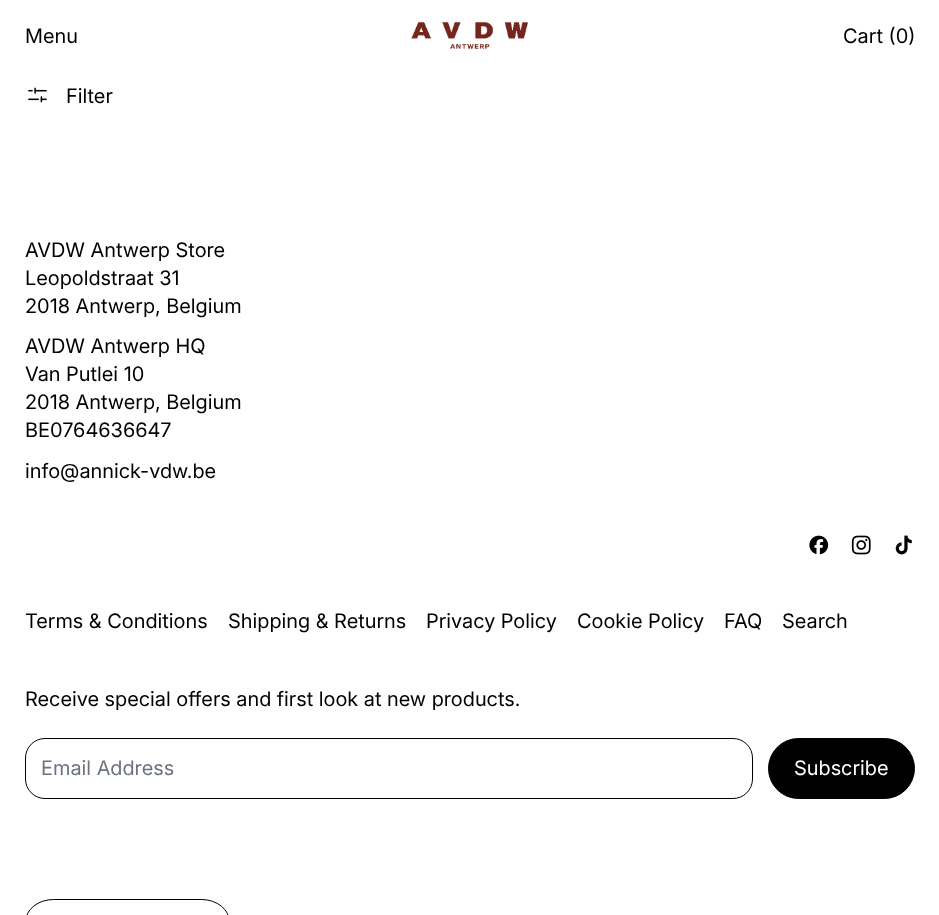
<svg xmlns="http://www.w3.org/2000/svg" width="939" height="915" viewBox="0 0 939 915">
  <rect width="100%" height="100%" fill="rgb(255,255,255)"/>
  <text x="25" y="43" font-family="Inter" font-size="20" fill="rgb(0,0,0)">Menu</text>
  <image x="411" y="21" width="118" height="28" href="pic1.png"/>
  <text x="843" y="43" font-family="Inter" font-size="20" fill="rgb(0,0,0)">Cart (0)</text>
  <image x="28" y="87" width="19" height="16" href="pic2.png"/>
  <g font-family="Inter" font-size="20" fill="rgb(0,0,0)">
    <text x="66" y="103">Filter</text>
    <text>
      <tspan x="25" y="257">AVDW Antwerp Store</tspan>
      <tspan x="25" y="285">Leopoldstraat 31</tspan>
      <tspan x="25" y="313">2018 Antwerp, Belgium</tspan>
    </text>
    <text>
      <tspan x="25" y="353">AVDW Antwerp HQ</tspan>
      <tspan x="25" y="381">Van Putlei 10</tspan>
      <tspan x="25" y="409">2018 Antwerp, Belgium</tspan>
      <tspan x="25" y="437">BE0764636647</tspan>
    </text>
    <text x="25" y="478">info@annick-vdw.be</text>
  </g>
  <image x="809" y="535" width="20" height="20" href="pic3.png"/>
  <image x="851" y="535" width="20" height="20" href="pic4.png"/>
  <image x="895" y="535" width="17" height="20" href="pic5.png"/>
  <g font-family="Inter" font-size="20" fill="rgb(0,0,0)">
    <text x="25" y="628">Terms &amp; Conditions</text>
    <text x="228" y="628">Shipping &amp; Returns</text>
    <text x="426" y="628">Privacy Policy</text>
    <text x="577" y="628">Cookie Policy</text>
    <text x="724" y="628">FAQ</text>
    <text x="782" y="628">Search</text>
    <text x="25" y="706">Receive special offers and first look at new products.</text>
  </g>
  <rect x="25.5" y="738.5" width="727" height="60" rx="19.5" fill="none" stroke="rgb(0,0,0)"/>
  <text x="41" y="775" font-family="Inter" font-size="20" fill="rgb(107,114,128)">Email Address</text>
  <rect x="768.5" y="738.5" width="146" height="60" rx="30" fill="rgb(0,0,0)" stroke="rgb(0,0,0)"/>
  <text x="794" y="775" font-family="Inter" font-size="20" fill="rgb(255,255,255)">Subscribe</text>
  <rect x="25.5" y="899.5" width="204" height="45" rx="28" fill="none" stroke="rgb(0,0,0)"/>
</svg>
